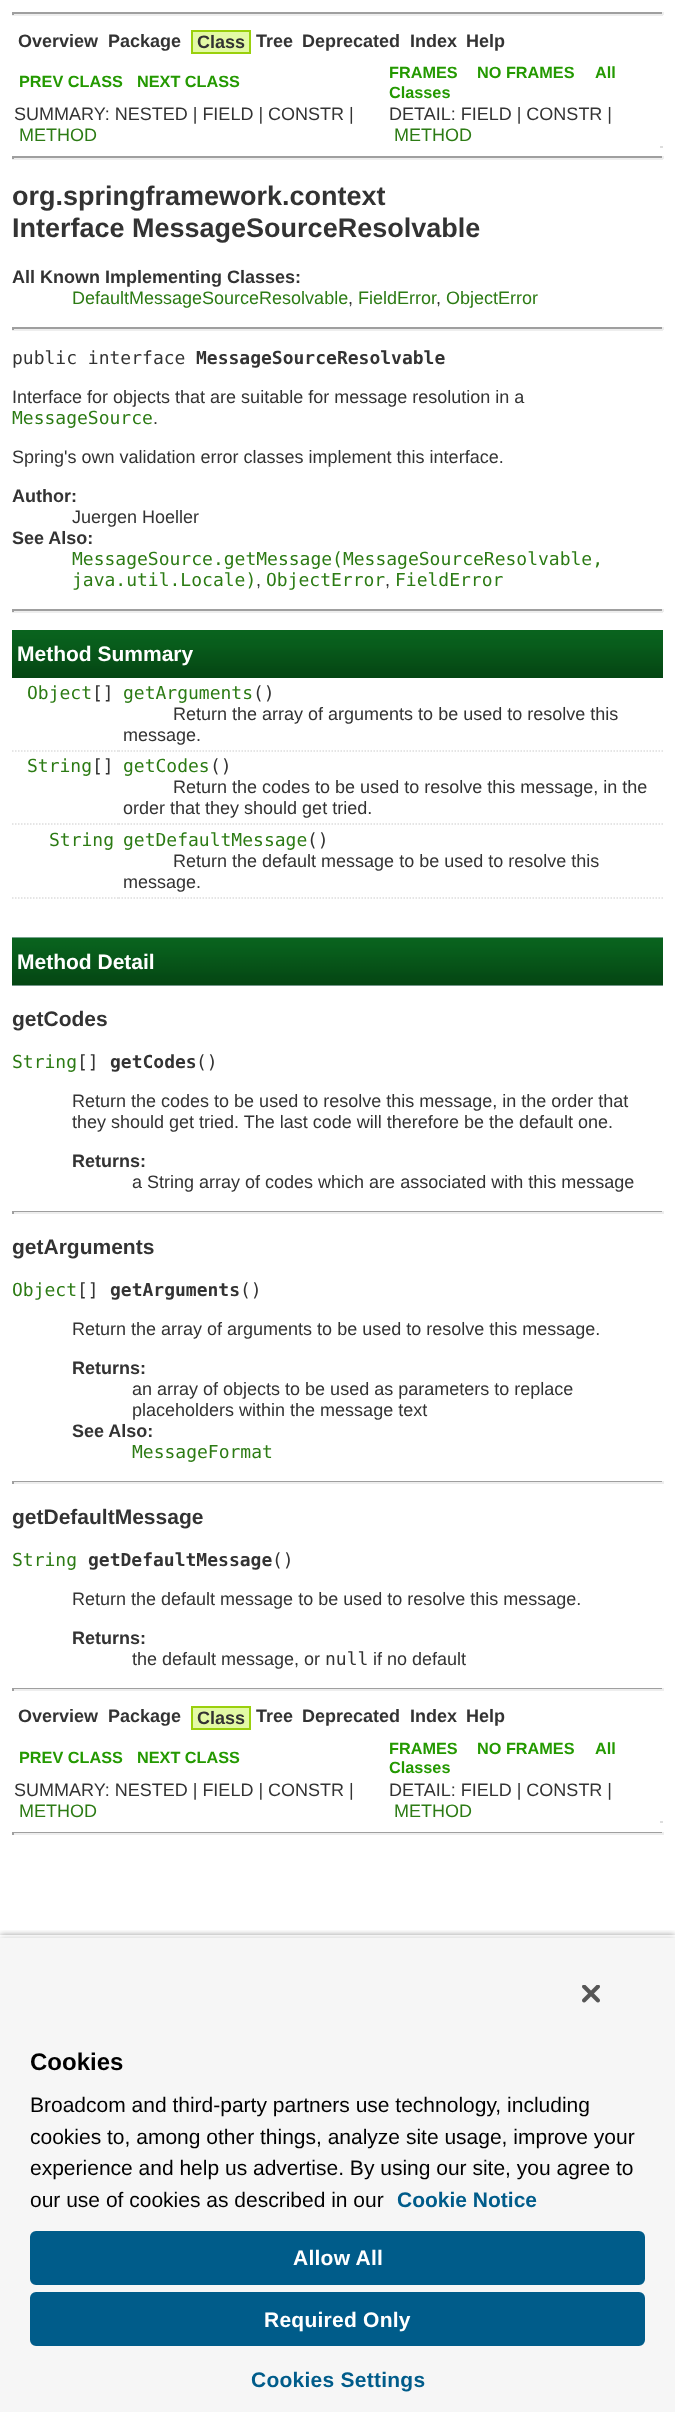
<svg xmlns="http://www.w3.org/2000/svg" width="675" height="2412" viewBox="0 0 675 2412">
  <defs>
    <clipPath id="clip1"><rect x="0" y="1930" width="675" height="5"/></clipPath>
  </defs>
  <rect width="100%" height="100%" fill="rgb(255,255,255)"/>
  <rect x="12" y="12" width="651" height="2" fill="rgb(159,159,159)"/>
  <rect x="662" y="12" width="2" height="3" fill="rgb(238,238,238)"/>
  <rect x="12" y="14" width="651" height="2" fill="rgb(238,238,238)"/>
  <rect x="12" y="12" width="2" height="3" fill="rgb(159,159,159)"/>
  <g font-family="Liberation Sans" font-size="18" font-weight="bold" fill="rgb(51,51,51)">
    <text x="18" y="47">Overview</text>
    <text x="108" y="47">Package</text>
  </g>
  <rect x="192" y="31" width="58" height="22" fill="rgb(227,250,165)" stroke="rgb(154,208,12)" stroke-width="2"/>
  <g font-family="Liberation Sans" font-size="18" font-weight="bold" fill="rgb(51,51,51)">
    <text x="197" y="48">Class</text>
    <text x="256" y="47">Tree</text>
    <text x="302" y="47">Deprecated</text>
    <text x="410" y="47">Index</text>
    <text x="466" y="47">Help</text>
  </g>
  <rect x="660" y="146" width="3" height="2" fill="rgb(221,221,221)"/>
  <g font-family="Liberation Sans" font-size="16.25" font-weight="bold" fill="rgb(36,153,1)">
    <text x="19" y="87">PREV CLASS</text>
    <text x="137" y="87">NEXT CLASS</text>
    <text x="389" y="78">FRAMES</text>
    <text x="477" y="78">NO FRAMES</text>
    <text x="595" y="78">All</text>
    <text x="389" y="98">Classes</text>
  </g>
  <text x="14" y="120" font-family="Liberation Sans" font-size="18" fill="rgb(51,51,51)">SUMMARY: NESTED | FIELD | CONSTR |</text>
  <text x="19" y="141" font-family="Liberation Sans" font-size="18" fill="rgb(44,123,20)">METHOD</text>
  <text x="389" y="120" font-family="Liberation Sans" font-size="18" fill="rgb(51,51,51)">DETAIL: FIELD | CONSTR |</text>
  <text x="394" y="141" font-family="Liberation Sans" font-size="18" fill="rgb(44,123,20)">METHOD</text>
  <rect x="12" y="156" width="651" height="2" fill="rgb(159,159,159)"/>
  <rect x="662" y="156" width="2" height="3" fill="rgb(238,238,238)"/>
  <rect x="12" y="158" width="651" height="2" fill="rgb(238,238,238)"/>
  <rect x="12" y="156" width="2" height="3" fill="rgb(159,159,159)"/>
  <g font-family="Liberation Sans" font-size="27" font-weight="bold" fill="rgb(51,51,51)">
    <text>
      <tspan x="12" y="205">org.springframework.context</tspan>
      <tspan x="12" y="237">Interface MessageSourceResolvable</tspan>
    </text>
  </g>
  <text x="12" y="283" font-family="Liberation Sans" font-size="18" font-weight="bold" fill="rgb(51,51,51)">All Known Implementing Classes:</text>
  <text x="72" y="304" font-family="Liberation Sans" font-size="18" fill="rgb(44,123,20)">DefaultMessageSourceResolvable</text>
  <text x="348" y="304" font-family="Liberation Sans" font-size="18" fill="rgb(51,51,51)">,</text>
  <text x="358" y="304" font-family="Liberation Sans" font-size="18" fill="rgb(44,123,20)">FieldError</text>
  <text x="436" y="304" font-family="Liberation Sans" font-size="18" fill="rgb(51,51,51)">,</text>
  <text x="446" y="304" font-family="Liberation Sans" font-size="18" fill="rgb(44,123,20)">ObjectError</text>
  <rect x="12" y="327" width="651" height="2" fill="rgb(159,159,159)"/>
  <rect x="662" y="327" width="2" height="3" fill="rgb(238,238,238)"/>
  <rect x="12" y="329" width="651" height="2" fill="rgb(238,238,238)"/>
  <rect x="12" y="327" width="2" height="3" fill="rgb(159,159,159)"/>
  <text x="12" y="364" font-family="DejaVu Sans Mono" font-size="18" fill="rgb(51,51,51)">public interface</text>
  <text x="196" y="364" font-family="DejaVu Sans Mono" font-size="18" font-weight="bold" fill="rgb(51,51,51)">MessageSourceResolvable</text>
  <text x="12" y="403" font-family="Liberation Sans" font-size="18" fill="rgb(51,51,51)">Interface for objects that are suitable for message resolution in a</text>
  <text x="12" y="424" font-family="DejaVu Sans Mono" font-size="18" fill="rgb(44,123,20)">MessageSource</text>
  <g font-family="Liberation Sans" font-size="18" fill="rgb(51,51,51)">
    <text x="153" y="424">.</text>
    <text x="12" y="463">Spring's own validation error classes implement this interface.</text>
  </g>
  <text x="12" y="502" font-family="Liberation Sans" font-size="18" font-weight="bold" fill="rgb(51,51,51)">Author:</text>
  <text x="72" y="523" font-family="Liberation Sans" font-size="18" fill="rgb(51,51,51)">Juergen Hoeller</text>
  <text x="12" y="544" font-family="Liberation Sans" font-size="18" font-weight="bold" fill="rgb(51,51,51)">See Also:</text>
  <g font-family="DejaVu Sans Mono" font-size="18" fill="rgb(44,123,20)">
    <text>
      <tspan x="72" y="565">MessageSource.getMessage(MessageSourceResolvable,</tspan>
      <tspan x="72" y="586">java.util.Locale)</tspan>
    </text>
  </g>
  <text x="256" y="586" font-family="Liberation Sans" font-size="18" fill="rgb(51,51,51)">,</text>
  <text x="266" y="586" font-family="DejaVu Sans Mono" font-size="18" fill="rgb(44,123,20)">ObjectError</text>
  <text x="385" y="586" font-family="Liberation Sans" font-size="18" fill="rgb(51,51,51)">,</text>
  <text x="395" y="586" font-family="DejaVu Sans Mono" font-size="18" fill="rgb(44,123,20)">FieldError</text>
  <rect x="12" y="609" width="651" height="2" fill="rgb(159,159,159)"/>
  <rect x="662" y="609" width="2" height="3" fill="rgb(238,238,238)"/>
  <rect x="12" y="611" width="651" height="2" fill="rgb(238,238,238)"/>
  <rect x="12" y="609" width="2" height="3" fill="rgb(159,159,159)"/>
  <image x="12" y="630" width="651" height="48" href="pic1.png"/>
  <text x="17" y="661" font-family="Liberation Sans" font-size="21" font-weight="bold" fill="rgb(255,255,255)">Method Summary</text>
  <path d="M12 751H118.5" fill="none" stroke="rgb(221,221,221)" stroke-width="1.5" stroke-dasharray="1.5 1.5"/>
  <text x="27" y="699" font-family="DejaVu Sans Mono" font-size="18" fill="rgb(44,123,20)">Object</text>
  <text x="92" y="699" font-family="DejaVu Sans Mono" font-size="18" fill="rgb(51,51,51)">[]</text>
  <path d="M118.5 751H663" fill="none" stroke="rgb(221,221,221)" stroke-width="1.5" stroke-dasharray="1.5 1.5"/>
  <text x="123" y="699" font-family="DejaVu Sans Mono" font-size="18" fill="rgb(44,123,20)">getArguments</text>
  <text x="253" y="699" font-family="DejaVu Sans Mono" font-size="18" fill="rgb(51,51,51)">()</text>
  <g font-family="Liberation Sans" font-size="18" fill="rgb(51,51,51)">
    <text x="173" y="720">Return the array of arguments to be used to resolve this</text>
    <text x="123" y="741">message.</text>
  </g>
  <path d="M12 824H118.5" fill="none" stroke="rgb(221,221,221)" stroke-width="1.5" stroke-dasharray="1.5 1.5"/>
  <text x="27" y="772" font-family="DejaVu Sans Mono" font-size="18" fill="rgb(44,123,20)">String</text>
  <text x="92" y="772" font-family="DejaVu Sans Mono" font-size="18" fill="rgb(51,51,51)">[]</text>
  <path d="M118.5 824H663" fill="none" stroke="rgb(221,221,221)" stroke-width="1.5" stroke-dasharray="1.5 1.5"/>
  <text x="123" y="772" font-family="DejaVu Sans Mono" font-size="18" fill="rgb(44,123,20)">getCodes</text>
  <text x="210" y="772" font-family="DejaVu Sans Mono" font-size="18" fill="rgb(51,51,51)">()</text>
  <g font-family="Liberation Sans" font-size="18" fill="rgb(51,51,51)">
    <text x="173" y="793">Return the codes to be used to resolve this message, in the</text>
    <text x="123" y="814">order that they should get tried.</text>
  </g>
  <path d="M12 898H118.5" fill="none" stroke="rgb(221,221,221)" stroke-width="1.5" stroke-dasharray="1.5 1.5"/>
  <text x="49" y="846" font-family="DejaVu Sans Mono" font-size="18" fill="rgb(44,123,20)">String</text>
  <path d="M118.5 898H663" fill="none" stroke="rgb(221,221,221)" stroke-width="1.5" stroke-dasharray="1.5 1.5"/>
  <text x="123" y="846" font-family="DejaVu Sans Mono" font-size="18" fill="rgb(44,123,20)">getDefaultMessage</text>
  <text x="307" y="846" font-family="DejaVu Sans Mono" font-size="18" fill="rgb(51,51,51)">()</text>
  <g font-family="Liberation Sans" font-size="18" fill="rgb(51,51,51)">
    <text x="173" y="867">Return the default message to be used to resolve this</text>
    <text x="123" y="888">message.</text>
  </g>
  <image x="12" y="937" width="651" height="49" href="pic2.png"/>
  <text x="17" y="969" font-family="Liberation Sans" font-size="21" font-weight="bold" fill="rgb(255,255,255)">Method Detail</text>
  <text x="12" y="1026" font-family="Liberation Sans" font-size="21" font-weight="bold" fill="rgb(51,51,51)">getCodes</text>
  <text x="12" y="1068" font-family="DejaVu Sans Mono" font-size="18" fill="rgb(44,123,20)">String</text>
  <text x="77" y="1068" font-family="DejaVu Sans Mono" font-size="18" fill="rgb(51,51,51)">[]</text>
  <text x="110" y="1068" font-family="DejaVu Sans Mono" font-size="18" font-weight="bold" fill="rgb(51,51,51)">getCodes</text>
  <text x="196" y="1068" font-family="DejaVu Sans Mono" font-size="18" fill="rgb(51,51,51)">()</text>
  <g font-family="Liberation Sans" font-size="18" fill="rgb(51,51,51)">
    <text>
      <tspan x="72" y="1107">Return the codes to be used to resolve this message, in the order that</tspan>
      <tspan x="72" y="1128">they should get tried. The last code will therefore be the default one.</tspan>
    </text>
  </g>
  <text x="72" y="1167" font-family="Liberation Sans" font-size="18" font-weight="bold" fill="rgb(51,51,51)">Returns:</text>
  <text x="132" y="1188" font-family="Liberation Sans" font-size="18" fill="rgb(51,51,51)">a String array of codes which are associated with this message</text>
  <rect x="12" y="1211" width="651" height="1" fill="rgb(159,159,159)"/>
  <rect x="662" y="1211" width="2" height="3" fill="rgb(238,238,238)"/>
  <rect x="12" y="1212" width="651" height="2" fill="rgb(238,238,238)"/>
  <rect x="12" y="1211" width="2" height="3" fill="rgb(159,159,159)"/>
  <text x="12" y="1254" font-family="Liberation Sans" font-size="21" font-weight="bold" fill="rgb(51,51,51)">getArguments</text>
  <text x="12" y="1296" font-family="DejaVu Sans Mono" font-size="18" fill="rgb(44,123,20)">Object</text>
  <text x="77" y="1296" font-family="DejaVu Sans Mono" font-size="18" fill="rgb(51,51,51)">[]</text>
  <text x="110" y="1296" font-family="DejaVu Sans Mono" font-size="18" font-weight="bold" fill="rgb(51,51,51)">getArguments</text>
  <text x="240" y="1296" font-family="DejaVu Sans Mono" font-size="18" fill="rgb(51,51,51)">()</text>
  <text x="72" y="1335" font-family="Liberation Sans" font-size="18" fill="rgb(51,51,51)">Return the array of arguments to be used to resolve this message.</text>
  <text x="72" y="1374" font-family="Liberation Sans" font-size="18" font-weight="bold" fill="rgb(51,51,51)">Returns:</text>
  <g font-family="Liberation Sans" font-size="18" fill="rgb(51,51,51)">
    <text>
      <tspan x="132" y="1395">an array of objects to be used as parameters to replace</tspan>
      <tspan x="132" y="1416">placeholders within the message text</tspan>
    </text>
  </g>
  <text x="72" y="1437" font-family="Liberation Sans" font-size="18" font-weight="bold" fill="rgb(51,51,51)">See Also:</text>
  <text x="132" y="1458" font-family="DejaVu Sans Mono" font-size="18" fill="rgb(44,123,20)">MessageFormat</text>
  <rect x="12" y="1481" width="651" height="1" fill="rgb(159,159,159)"/>
  <rect x="662" y="1481" width="2" height="3" fill="rgb(238,238,238)"/>
  <rect x="12" y="1482" width="651" height="2" fill="rgb(238,238,238)"/>
  <rect x="12" y="1481" width="2" height="3" fill="rgb(159,159,159)"/>
  <text x="12" y="1524" font-family="Liberation Sans" font-size="21" font-weight="bold" fill="rgb(51,51,51)">getDefaultMessage</text>
  <text x="12" y="1566" font-family="DejaVu Sans Mono" font-size="18" fill="rgb(44,123,20)">String</text>
  <text x="88" y="1566" font-family="DejaVu Sans Mono" font-size="18" font-weight="bold" fill="rgb(51,51,51)">getDefaultMessage</text>
  <text x="272" y="1566" font-family="DejaVu Sans Mono" font-size="18" fill="rgb(51,51,51)">()</text>
  <text x="72" y="1605" font-family="Liberation Sans" font-size="18" fill="rgb(51,51,51)">Return the default message to be used to resolve this message.</text>
  <text x="72" y="1644" font-family="Liberation Sans" font-size="18" font-weight="bold" fill="rgb(51,51,51)">Returns:</text>
  <text x="132" y="1665" font-family="Liberation Sans" font-size="18" fill="rgb(51,51,51)">the default message, or</text>
  <text x="325" y="1665" font-family="DejaVu Sans Mono" font-size="18" fill="rgb(51,51,51)">null</text>
  <text x="373" y="1665" font-family="Liberation Sans" font-size="18" fill="rgb(51,51,51)">if no default</text>
  <rect x="12" y="1688" width="651" height="1" fill="rgb(159,159,159)"/>
  <rect x="662" y="1688" width="2" height="3" fill="rgb(238,238,238)"/>
  <rect x="12" y="1689" width="651" height="2" fill="rgb(238,238,238)"/>
  <rect x="12" y="1688" width="2" height="3" fill="rgb(159,159,159)"/>
  <g font-family="Liberation Sans" font-size="18" font-weight="bold" fill="rgb(51,51,51)">
    <text x="18" y="1722">Overview</text>
    <text x="108" y="1722">Package</text>
  </g>
  <rect x="192" y="1707" width="58" height="22" fill="rgb(227,250,165)" stroke="rgb(154,208,12)" stroke-width="2"/>
  <g font-family="Liberation Sans" font-size="18" font-weight="bold" fill="rgb(51,51,51)">
    <text x="197" y="1724">Class</text>
    <text x="256" y="1722">Tree</text>
    <text x="302" y="1722">Deprecated</text>
    <text x="410" y="1722">Index</text>
    <text x="466" y="1722">Help</text>
  </g>
  <rect x="660" y="1821" width="3" height="2" fill="rgb(221,221,221)"/>
  <g font-family="Liberation Sans" font-size="16.25" font-weight="bold" fill="rgb(36,153,1)">
    <text x="19" y="1763">PREV CLASS</text>
    <text x="137" y="1763">NEXT CLASS</text>
    <text x="389" y="1754">FRAMES</text>
    <text x="477" y="1754">NO FRAMES</text>
    <text x="595" y="1754">All</text>
    <text x="389" y="1773">Classes</text>
  </g>
  <text x="14" y="1796" font-family="Liberation Sans" font-size="18" fill="rgb(51,51,51)">SUMMARY: NESTED | FIELD | CONSTR |</text>
  <text x="19" y="1817" font-family="Liberation Sans" font-size="18" fill="rgb(44,123,20)">METHOD</text>
  <text x="389" y="1796" font-family="Liberation Sans" font-size="18" fill="rgb(51,51,51)">DETAIL: FIELD | CONSTR |</text>
  <text x="394" y="1817" font-family="Liberation Sans" font-size="18" fill="rgb(44,123,20)">METHOD</text>
  <rect x="12" y="1832" width="651" height="1" fill="rgb(159,159,159)"/>
  <rect x="662" y="1832" width="2" height="3" fill="rgb(238,238,238)"/>
  <rect x="12" y="1833" width="651" height="2" fill="rgb(238,238,238)"/>
  <rect x="12" y="1832" width="2" height="3" fill="rgb(159,159,159)"/>
  <g clip-path="url(#clip1)">
    <rect x="0" y="1935" width="675" height="477" fill="rgba(0,0,0,0.35)" filter="blur(3px)"/>
  </g>
  <rect x="0" y="1938" width="675" height="474" fill="rgba(0,0,0,0.2)" filter="blur(3px)"/>
  <rect x="0" y="1938" width="675" height="474" fill="rgb(246,246,246)"/>
  <image x="582" y="1985" width="18" height="18" href="pic3.png"/>
  <text x="30" y="2070" font-family="Liberation Sans" font-size="24" font-weight="bold" fill="rgb(0,0,0)">Cookies</text>
  <g font-family="Liberation Sans" font-size="21" fill="rgb(0,0,0)">
    <text>
      <tspan x="30" y="2112">Broadcom and third-party partners use technology, including</tspan>
      <tspan x="30" y="2144">cookies to, among other things, analyze site usage, improve your</tspan>
      <tspan x="30" y="2175">experience and help us advertise. By using our site, you agree to</tspan>
      <tspan x="30" y="2207">our use of cookies as described in our</tspan>
    </text>
  </g>
  <text x="397" y="2207" font-family="Liberation Sans" font-size="21" font-weight="bold" fill="rgb(0,92,138)">Cookie Notice</text>
  <rect x="31" y="2232" width="613" height="52" rx="5" fill="rgb(0,92,138)" stroke="rgb(0,92,138)" stroke-width="2"/>
  <text x="293" y="2265" font-family="Liberation Sans" font-size="21" font-weight="bold" letter-spacing="0.25" fill="rgb(255,255,255)">Allow All</text>
  <rect x="31" y="2293" width="613" height="52" rx="5" fill="rgb(0,92,138)" stroke="rgb(0,92,138)" stroke-width="2"/>
  <text x="264" y="2327" font-family="Liberation Sans" font-size="21" font-weight="bold" letter-spacing="0.25" fill="rgb(255,255,255)">Required Only</text>
  <text x="251" y="2387" font-family="Liberation Sans" font-size="21" font-weight="bold" letter-spacing="0.25" fill="rgb(0,92,138)">Cookies Settings</text>
</svg>
